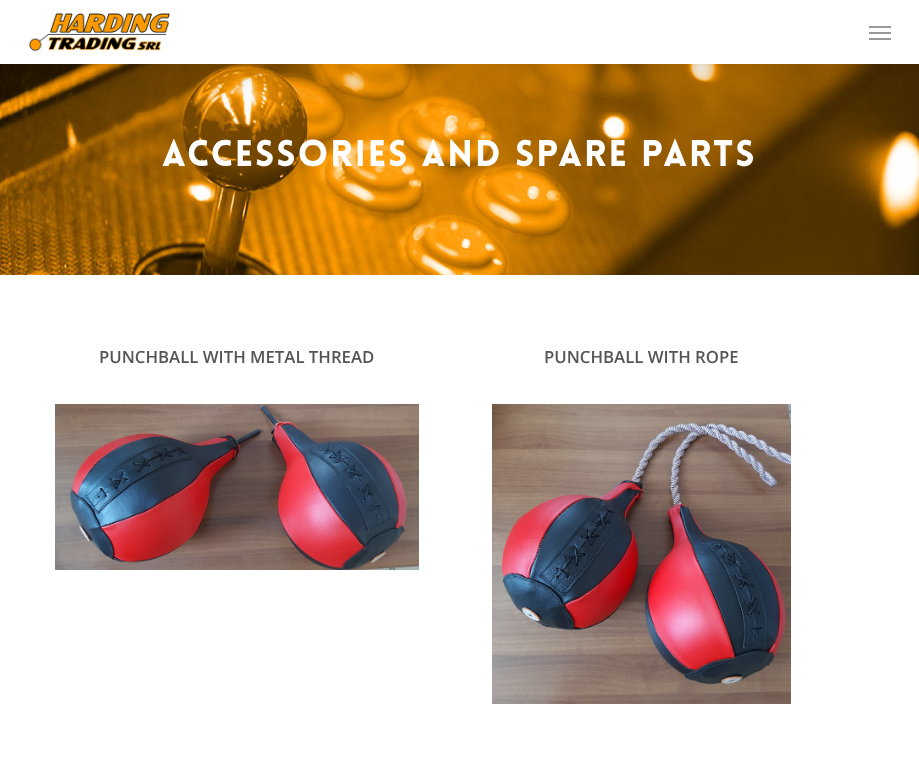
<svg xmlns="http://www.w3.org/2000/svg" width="919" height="765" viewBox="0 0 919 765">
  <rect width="100%" height="100%" fill="rgb(255,255,255)"/>
  <image x="0" y="64" width="919" height="211" href="pic2.png"/>
  <rect x="0" y="3" width="919" height="64" fill="rgba(0,0,0,0.15)" filter="blur(22.5px)"/>
  <rect x="0" y="0" width="919" height="64" fill="rgb(255,255,255)"/>
  <image x="29" y="13" width="142" height="39" href="pic1.png"/>
  <rect x="869" y="26" width="22" height="2" fill="rgb(153,153,153)"/>
  <rect x="869" y="38" width="22" height="2" fill="rgb(153,153,153)"/>
  <rect x="869" y="32" width="22" height="2" fill="rgb(153,153,153)"/>
  <text x="162" y="166" font-family="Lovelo" font-size="36.4" font-weight="900" letter-spacing="2" fill="rgb(255,255,255)">accessories and spare parts</text>
  <text x="99" y="363" font-family="Open Sans" font-size="16.75" font-weight="600" fill="rgb(85,85,85)">PUNCHBALL WITH METAL THREAD</text>
  <image x="55" y="404" width="364" height="166" href="pic3.png"/>
  <text x="544" y="363" font-family="Open Sans" font-size="16.75" font-weight="600" fill="rgb(85,85,85)">PUNCHBALL WITH ROPE</text>
  <image x="492" y="404" width="299" height="300" href="pic4.png"/>
</svg>
